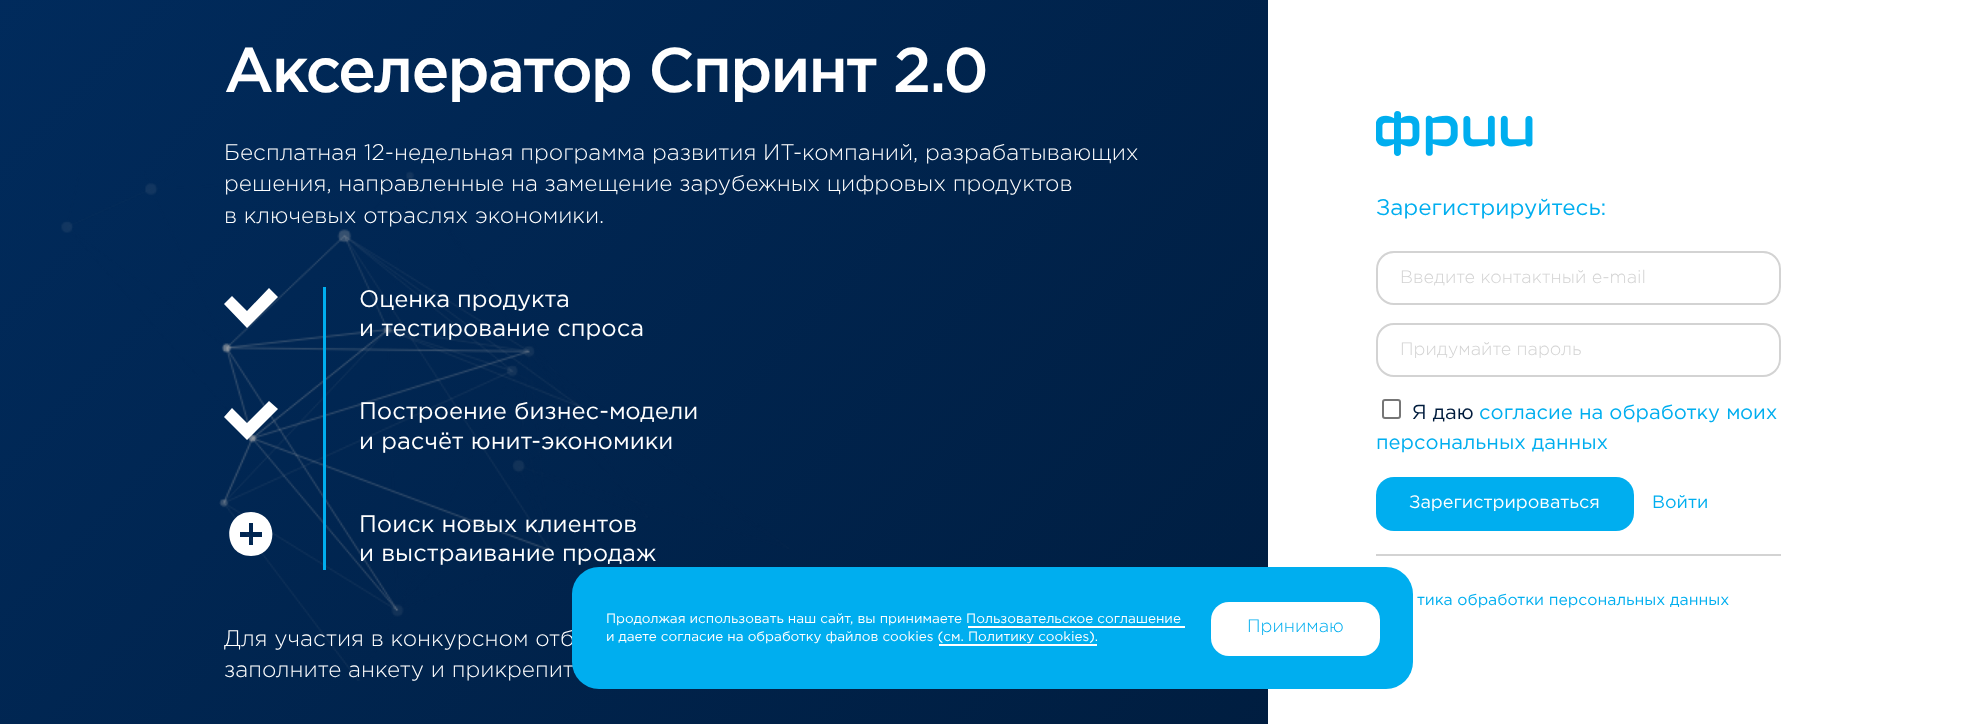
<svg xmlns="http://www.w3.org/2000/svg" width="1986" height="724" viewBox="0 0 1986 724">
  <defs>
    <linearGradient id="g1" gradientUnits="userSpaceOnUse" x1="-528" y1="-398" x2="1104" y2="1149"><stop offset="0" stop-color="rgb(1,49,105)"/><stop offset="1" stop-color="rgb(0,28,61)"/></linearGradient>
  </defs>
  <rect width="100%" height="100%" fill="rgb(255,255,255)"/>
  <rect x="0" y="0" width="1268" height="724" fill="url(#g1)"/>
  <text x="224" y="92" font-family="Gotham" font-size="63" font-weight="500" letter-spacing="-1.9" fill="rgb(255,255,255)">Акселератор Спринт 2.0</text>
  <text x="224" y="160" font-family="Gotham" font-size="22.5" font-weight="300" fill="rgb(255,255,255)">Бесплатная 12-недельная программа развития ИТ-компаний, разрабатывающих</text>
  <image x="61" y="171" width="728" height="510" href="pic1.png"/>
  <g font-family="Gotham" font-size="22.5" font-weight="300" fill="rgb(255,255,255)">
    <text>
      <tspan x="224" y="191">решения, направленные на замещение зарубежных цифровых продуктов</tspan>
      <tspan x="224" y="223">в ключевых отраслях экономики.</tspan>
    </text>
  </g>
  <path d="M269 288L247 311L232 296L224 304L247 328L278 297Z" fill="rgb(255,255,255)"/>
  <rect x="323" y="287" width="3" height="283" fill="rgb(0,174,239)"/>
  <g font-family="Gotham" font-size="23.8" fill="rgb(255,255,255)">
    <text>
      <tspan x="359" y="307">Оценка продукта</tspan>
      <tspan x="359" y="336">и тестирование спроса</tspan>
    </text>
  </g>
  <path d="M269 401L247 423L232 408L224 417L247 440L278 409Z" fill="rgb(255,255,255)"/>
  <g font-family="Gotham" font-size="23.8" fill="rgb(255,255,255)">
    <text>
      <tspan x="359" y="419">Построение бизнес-модели</tspan>
      <tspan x="359" y="449">и расчёт юнит-экономики</tspan>
    </text>
  </g>
  <path d="M251 512C279 512 280 556 251 556C222 556 222 512 251 512ZM240 537H249V545H253V537H262V532H253V523H249V532H240Z" fill="rgb(255,255,255)"/>
  <g font-family="Gotham" font-size="23.8" fill="rgb(255,255,255)">
    <text>
      <tspan x="359" y="532">Поиск новых клиентов</tspan>
      <tspan x="359" y="561">и выстраивание продаж</tspan>
    </text>
  </g>
  <g font-family="Gotham" font-size="22.5" font-weight="300" fill="rgb(255,255,255)">
    <text>
      <tspan x="224" y="646">Для участия в конкурсном отб</tspan>
      <tspan x="224" y="677">заполните анкету и прикрепит</tspan>
    </text>
  </g>
  <image x="1376" y="111" width="157" height="45" href="pic2.png"/>
  <text x="1376" y="215" font-family="Gotham" font-size="22.5" fill="rgb(0,174,239)">Зарегистрируйтесь:</text>
  <rect x="1377" y="252" width="403" height="52" rx="17" fill="none" stroke="rgb(211,211,211)" stroke-width="2"/>
  <text x="1400" y="283" font-family="Gotham" font-size="18" font-weight="300" fill="rgb(211,211,211)">Введите контактный e-mail</text>
  <rect x="1377" y="324" width="403" height="52" rx="17" fill="none" stroke="rgb(211,211,211)" stroke-width="2"/>
  <text x="1400" y="355" font-family="Gotham" font-size="18" font-weight="300" fill="rgb(211,211,211)">Придумайте пароль</text>
  <rect x="1383" y="400" width="17" height="18" rx="2" fill="none" stroke="rgb(118,118,118)" stroke-width="2"/>
  <text x="1412" y="419" font-family="Gotham" font-size="20.25" fill="rgb(0,28,61)">Я даю</text>
  <g font-family="Gotham" font-size="20.25" fill="rgb(0,174,239)">
    <text x="1479" y="419">согласие на обработку моих</text>
    <text x="1376" y="449">персональных данных</text>
  </g>
  <rect x="1376" y="554" width="405" height="2" fill="rgb(211,211,211)"/>
  <rect x="1376" y="477" width="258" height="54" rx="18" fill="rgb(0,174,239)"/>
  <text x="1409" y="508" font-family="Gotham" font-size="18" fill="rgb(255,255,255)">Зарегистрироваться</text>
  <text x="1652" y="508" font-family="Gotham" font-size="18" fill="rgb(0,174,239)">Войти</text>
  <text x="1417" y="605" font-family="Gotham" font-size="15.75" fill="rgb(0,174,239)">тика обработки персональных данных</text>
  <rect x="572" y="567" width="841" height="122" rx="27" fill="rgb(0,174,239)"/>
  <text x="606" y="623" font-family="Gotham" font-size="13.5" fill="rgb(255,255,255)">Продолжая использовать наш сайт, вы принимаете Пользовательское соглашение</text>
  <rect x="968" y="626" width="217" height="2" fill="rgb(255,255,255)"/>
  <text x="606" y="641" font-family="Gotham" font-size="13.5" fill="rgb(255,255,255)">и даете согласие на обработку файлов cookies (см. Политику cookies).</text>
  <rect x="939" y="644" width="158" height="2" fill="rgb(255,255,255)"/>
  <rect x="1211" y="602" width="169" height="54" rx="18" fill="rgb(255,255,255)"/>
  <text x="1247" y="632" font-family="Gotham" font-size="18" font-weight="300" fill="rgb(0,174,239)">Принимаю</text>
</svg>
